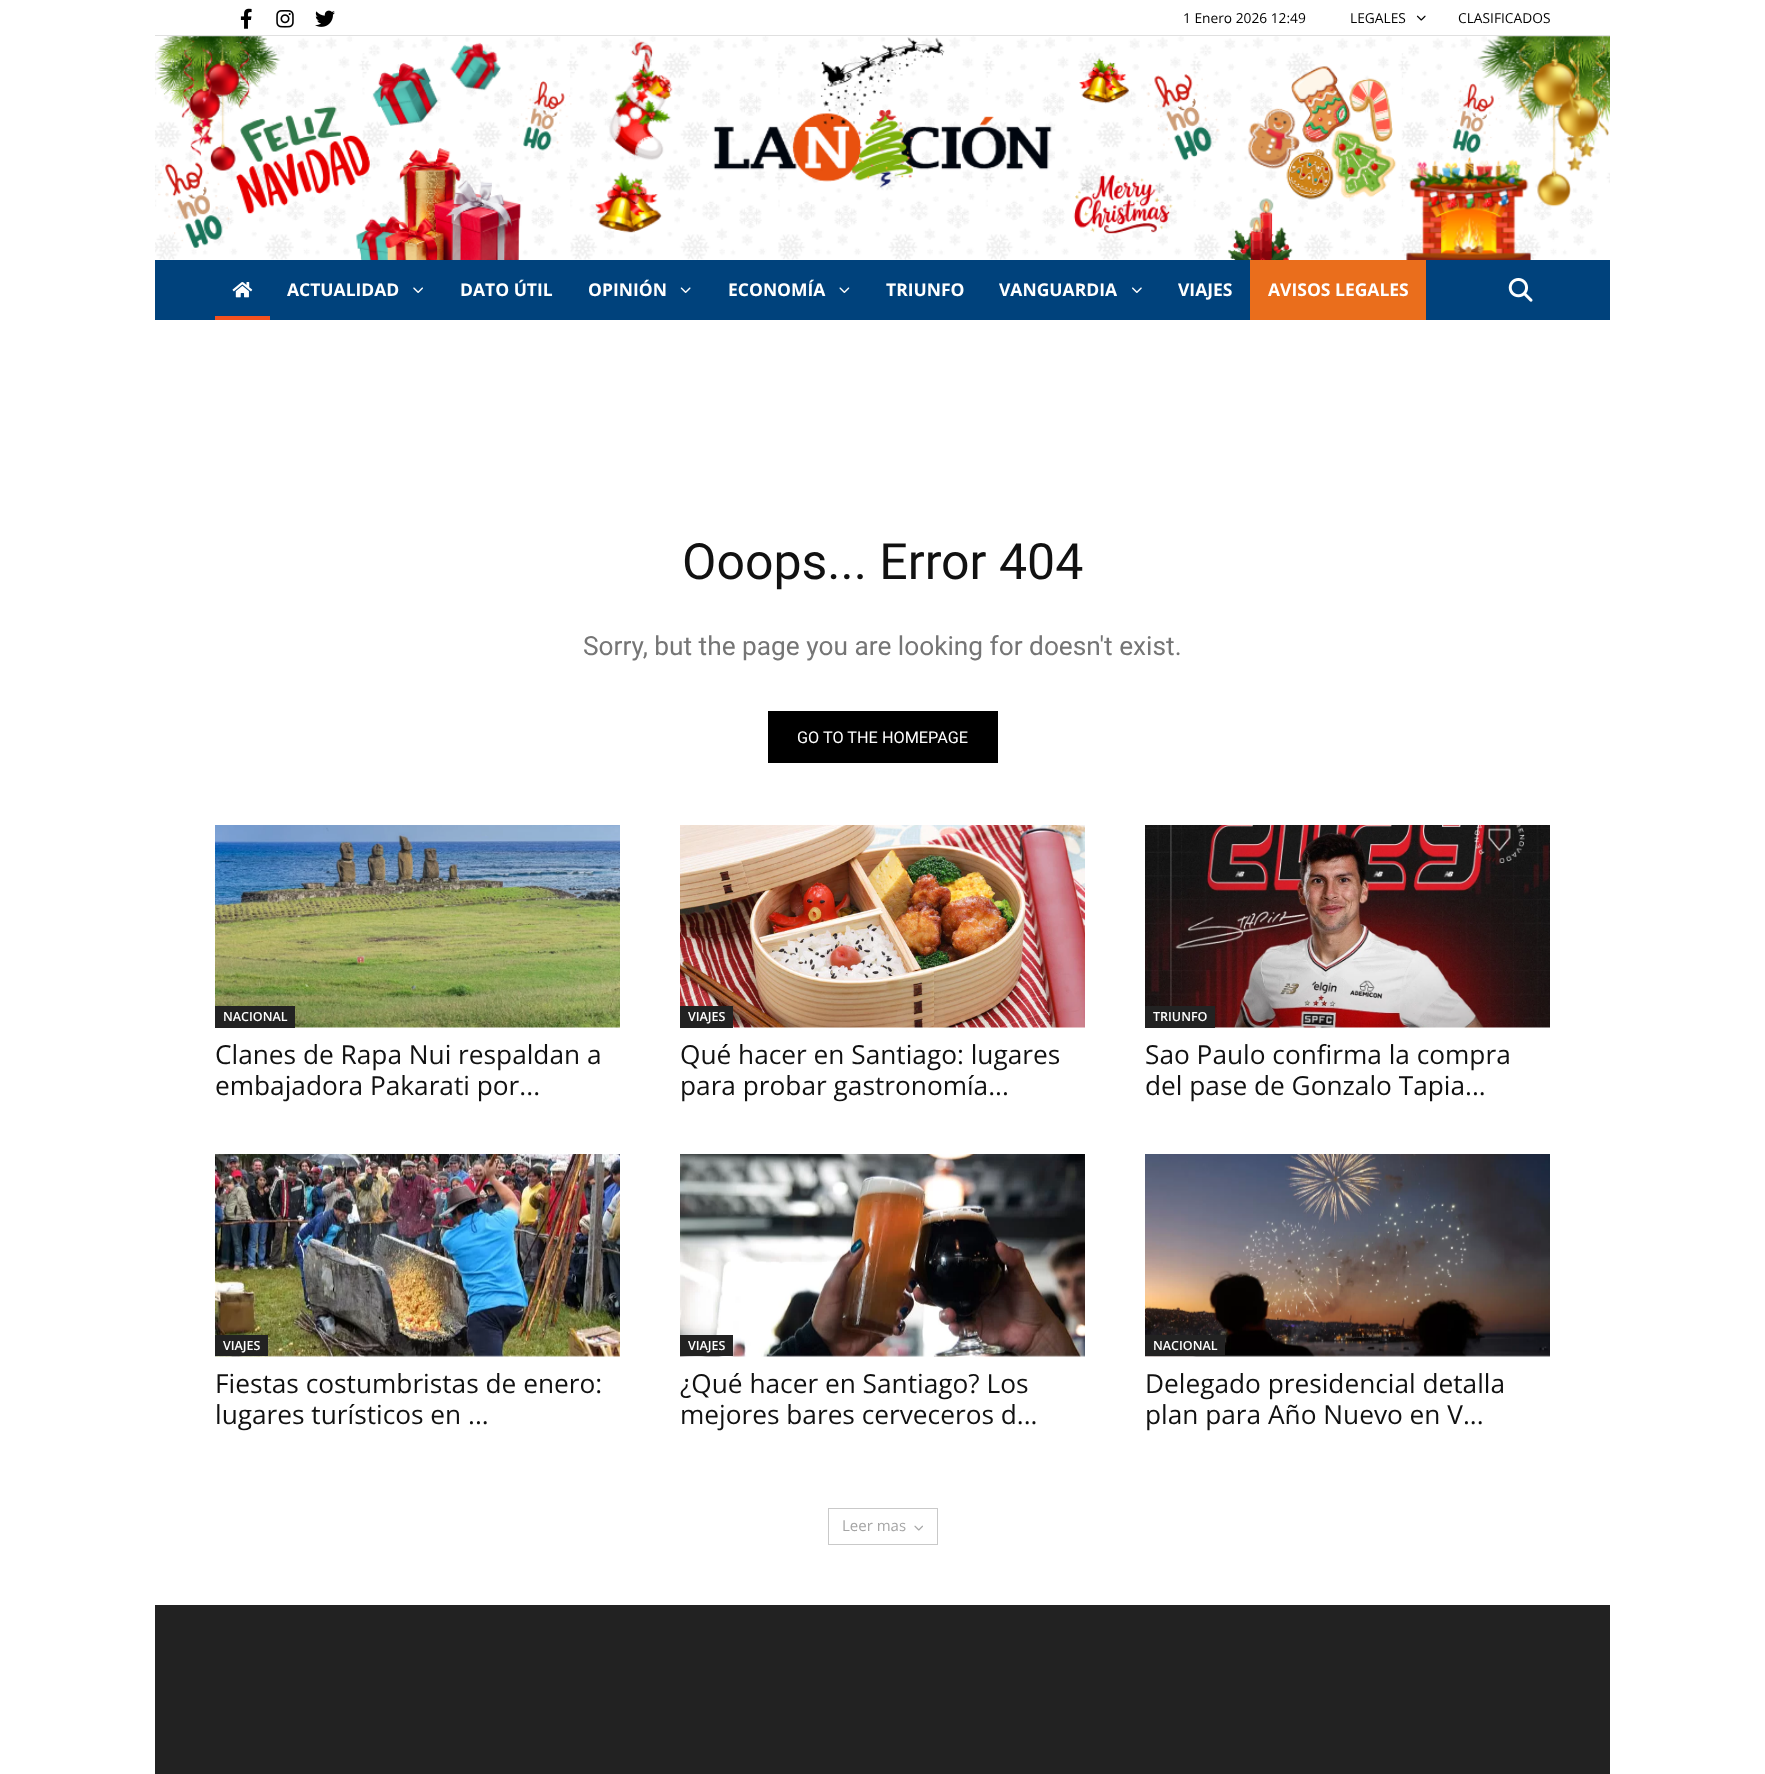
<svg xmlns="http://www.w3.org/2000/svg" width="1765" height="1774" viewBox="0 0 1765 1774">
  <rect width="100%" height="100%" fill="rgb(255,255,255)"/>
  <rect x="155" y="35" width="1455" height="1" fill="rgb(224,224,224)"/>
  <image x="240" y="8" width="12" height="21" href="pic1.png"/>
  <image x="276" y="10" width="18" height="18" href="pic2.png"/>
  <image x="315" y="10" width="20" height="17" href="pic3.png"/>
  <g font-family="Open Sans" font-size="13.75" fill="rgb(0,0,0)">
    <text x="1183" y="23">1 Enero 2026 12:49</text>
    <text x="1350" y="23">LEGALES</text>
  </g>
  <image x="1416" y="15" width="10" height="6" href="pic4.png"/>
  <text x="1458" y="23" font-family="Open Sans" font-size="13.75" fill="rgb(0,0,0)">CLASIFICADOS</text>
  <image x="155" y="36" width="1455" height="224" href="pic5.png"/>
  <rect x="155" y="260" width="1455" height="60" fill="rgb(0,66,124)"/>
  <image x="232" y="282" width="21" height="16" href="pic6.png"/>
  <rect x="215" y="316" width="55" height="4" fill="rgb(244,81,30)"/>
  <text x="287" y="296" font-family="Open Sans" font-size="17.5" font-weight="bold" fill="rgb(255,255,255)">ACTUALIDAD</text>
  <image x="413" y="287" width="10" height="6" href="pic7.png"/>
  <g font-family="Open Sans" font-size="17.5" font-weight="bold" fill="rgb(255,255,255)">
    <text x="460" y="296">DATO ÚTIL</text>
    <text x="588" y="296">OPINIÓN</text>
  </g>
  <image x="680" y="287" width="11" height="6" href="pic8.png"/>
  <text x="728" y="296" font-family="Open Sans" font-size="17.5" font-weight="bold" fill="rgb(255,255,255)">ECONOMÍA</text>
  <image x="839" y="287" width="11" height="6" href="pic9.png"/>
  <g font-family="Open Sans" font-size="17.5" font-weight="bold" fill="rgb(255,255,255)">
    <text x="886" y="296">TRIUNFO</text>
    <text x="999" y="296">VANGUARDIA</text>
  </g>
  <image x="1132" y="287" width="10" height="6" href="pic10.png"/>
  <text x="1178" y="296" font-family="Open Sans" font-size="17.5" font-weight="bold" fill="rgb(255,255,255)">VIAJES</text>
  <rect x="1250" y="260" width="176" height="60" fill="rgb(234,110,28)"/>
  <text x="1268" y="296" font-family="Open Sans" font-size="17.5" font-weight="bold" fill="rgb(255,255,255)">AVISOS LEGALES</text>
  <image x="1508" y="278" width="25" height="24" href="pic11.png"/>
  <text x="682" y="579" font-family="Roboto" font-size="50" fill="rgb(17,17,17)">Ooops... Error 404</text>
  <text x="583" y="655" font-family="Roboto" font-size="26.25" fill="rgb(117,117,117)">Sorry, but the page you are looking for doesn't exist.</text>
  <rect x="768" y="711" width="230" height="52" fill="rgb(0,0,0)"/>
  <text x="797" y="743" font-family="Roboto" font-size="16.25" fill="rgb(255,255,255)">GO TO THE HOMEPAGE</text>
  <image x="215" y="825" width="405" height="203" href="pic12.png"/>
  <rect x="215" y="1006" width="80" height="22" fill="rgb(34,34,34)"/>
  <text x="223" y="1021" font-family="Open Sans" font-size="12.5" font-weight="600" fill="rgb(255,255,255)">NACIONAL</text>
  <g font-family="Open Sans" font-size="26.25" fill="rgb(17,17,17)">
    <text>
      <tspan x="215" y="1064">Clanes de Rapa Nui respaldan a</tspan>
      <tspan x="215" y="1095">embajadora Pakarati por...</tspan>
    </text>
  </g>
  <image x="680" y="825" width="405" height="203" href="pic13.png"/>
  <rect x="680" y="1006" width="53" height="22" fill="rgb(34,34,34)"/>
  <text x="688" y="1021" font-family="Open Sans" font-size="12.5" font-weight="600" fill="rgb(255,255,255)">VIAJES</text>
  <g font-family="Open Sans" font-size="26.25" fill="rgb(17,17,17)">
    <text>
      <tspan x="680" y="1064">Qué hacer en Santiago: lugares</tspan>
      <tspan x="680" y="1095">para probar gastronomía...</tspan>
    </text>
  </g>
  <image x="1145" y="825" width="405" height="203" href="pic14.png"/>
  <rect x="1145" y="1006" width="70" height="22" fill="rgb(34,34,34)"/>
  <text x="1153" y="1021" font-family="Open Sans" font-size="12.5" font-weight="600" fill="rgb(255,255,255)">TRIUNFO</text>
  <g font-family="Open Sans" font-size="26.25" fill="rgb(17,17,17)">
    <text>
      <tspan x="1145" y="1064">Sao Paulo confirma la compra</tspan>
      <tspan x="1145" y="1095">del pase de Gonzalo Tapia...</tspan>
    </text>
  </g>
  <image x="215" y="1154" width="405" height="203" href="pic15.png"/>
  <rect x="215" y="1335" width="53" height="21" fill="rgb(34,34,34)"/>
  <text x="223" y="1350" font-family="Open Sans" font-size="12.5" font-weight="600" fill="rgb(255,255,255)">VIAJES</text>
  <g font-family="Open Sans" font-size="26.25" fill="rgb(17,17,17)">
    <text>
      <tspan x="215" y="1393">Fiestas costumbristas de enero:</tspan>
      <tspan x="215" y="1424">lugares turísticos en ...</tspan>
    </text>
  </g>
  <image x="680" y="1154" width="405" height="203" href="pic16.png"/>
  <rect x="680" y="1335" width="53" height="21" fill="rgb(34,34,34)"/>
  <text x="688" y="1350" font-family="Open Sans" font-size="12.5" font-weight="600" fill="rgb(255,255,255)">VIAJES</text>
  <g font-family="Open Sans" font-size="26.25" fill="rgb(17,17,17)">
    <text>
      <tspan x="680" y="1393">¿Qué hacer en Santiago? Los</tspan>
      <tspan x="680" y="1424">mejores bares cerveceros d...</tspan>
    </text>
  </g>
  <image x="1145" y="1154" width="405" height="203" href="pic17.png"/>
  <rect x="1145" y="1335" width="80" height="21" fill="rgb(34,34,34)"/>
  <text x="1153" y="1350" font-family="Open Sans" font-size="12.5" font-weight="600" fill="rgb(255,255,255)">NACIONAL</text>
  <g font-family="Open Sans" font-size="26.25" fill="rgb(17,17,17)">
    <text>
      <tspan x="1145" y="1393">Delegado presidencial detalla</tspan>
      <tspan x="1145" y="1424">plan para Año Nuevo en V...</tspan>
    </text>
  </g>
  <rect x="828.5" y="1508.5" width="109" height="36" fill="none" stroke="rgb(201,201,201)"/>
  <text x="842" y="1531" font-family="Open Sans" font-size="15" fill="rgb(165,165,165)">Leer mas</text>
  <image x="914" y="1525" width="9" height="6" href="pic18.png"/>
  <rect x="155" y="1605" width="1455" height="169" fill="rgb(34,34,34)"/>
</svg>
